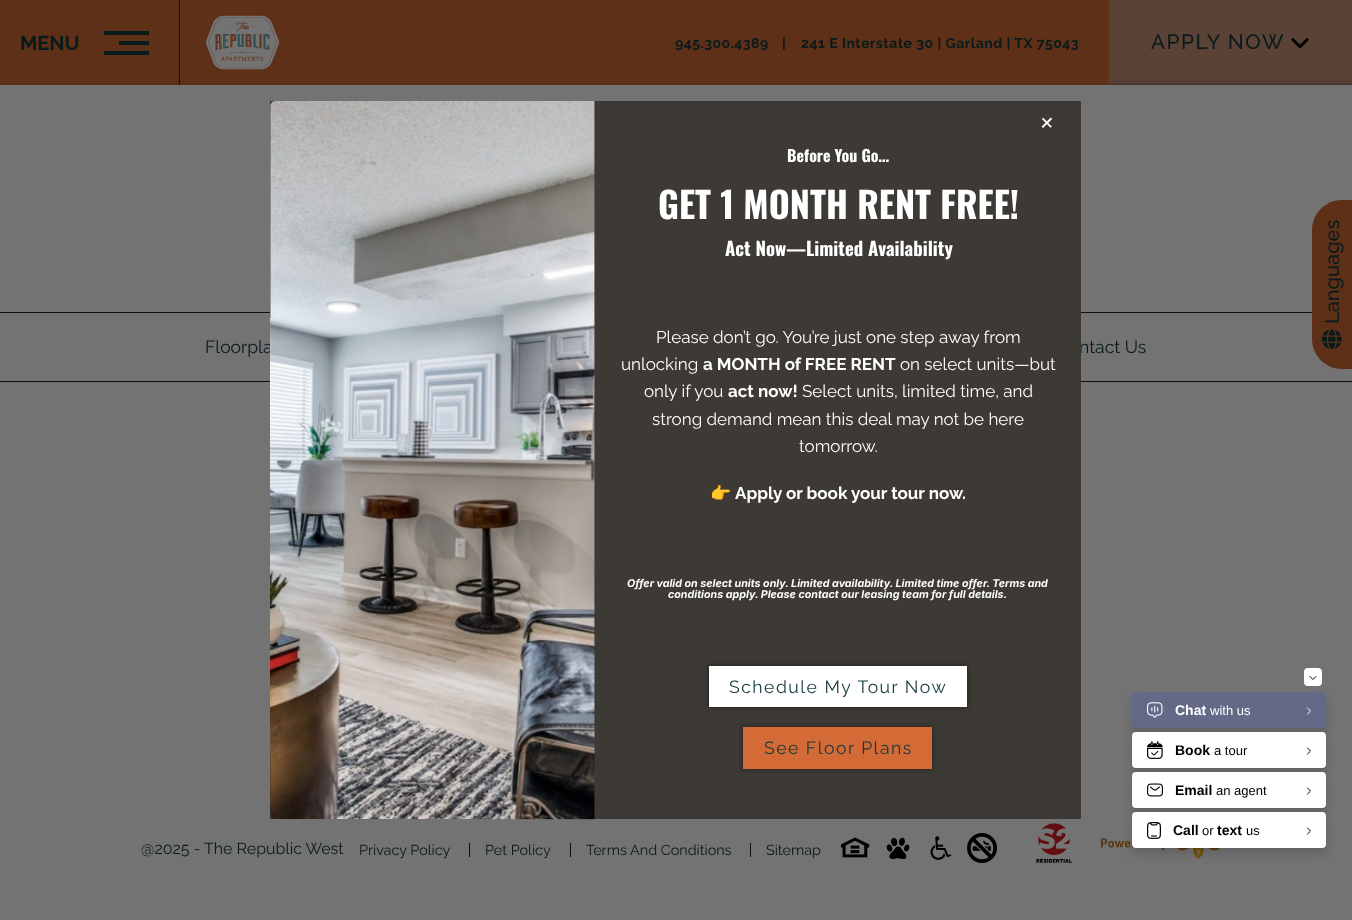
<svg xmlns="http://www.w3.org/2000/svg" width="1352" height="920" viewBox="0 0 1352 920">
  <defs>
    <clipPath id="clip1"><rect x="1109" y="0" width="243" height="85"/></clipPath>
  </defs>
  <rect width="100%" height="100%" fill="rgb(115,115,115)"/>
  <rect x="0" y="0" width="1109" height="85" fill="rgb(95,48,24)"/>
  <rect x="179" y="0" width="1" height="85" fill="rgb(9,26,27)"/>
  <rect x="104" y="31" width="45" height="4" fill="rgb(9,26,27)"/>
  <text x="20" y="50" font-family="Raleway" font-size="20" font-weight="bold" fill="rgb(9,26,27)">MENU</text>
  <rect x="119" y="41" width="30" height="4" fill="rgb(9,26,27)"/>
  <rect x="104" y="51" width="45" height="4" fill="rgb(9,26,27)"/>
  <image x="205" y="15" width="75" height="55" href="pic1.png"/>
  <g font-family="Raleway" font-size="14" font-weight="bold" letter-spacing="0.5" fill="rgb(9,26,27)">
    <text x="675" y="48">945.300.4389</text>
    <text x="782" y="48">|</text>
    <text x="801" y="48">241 E Interstate 30 | Garland | TX 75043</text>
  </g>
  <rect x="1109" y="0" width="243" height="85" fill="rgb(91,66,55)"/>
  <text x="1151" y="49" font-family="Raleway" font-size="20.75" font-weight="500" letter-spacing="1.5" fill="rgb(9,26,27)">APPLY NOW</text>
  <image x="1291" y="38" width="18" height="11" href="pic2.png"/>
  <g clip-path="url(#clip1)">
    <rect x="1109" y="85" width="243" height="85" fill="rgba(0,0,0,0.5)" filter="blur(2.5px)"/>
  </g>
  <rect x="0" y="312" width="1312" height="1" fill="rgb(16,16,16)"/>
  <rect x="0" y="381" width="1352" height="1" fill="rgb(16,16,16)"/>
  <g font-family="Raleway" font-size="17.6" fill="rgb(9,26,27)">
    <text x="205" y="353">Floorpla</text>
    <text x="1079" y="353">ntact Us</text>
  </g>
  <rect x="270" y="101" width="811" height="718" fill="rgb(61,57,52)"/>
  <text x="1031" y="127" transform="rotate(45 1031 127)" font-family="Raleway" font-size="40" font-weight="300" fill="rgb(255,255,255)">+</text>
  <image x="270" y="101" width="325" height="719" href="pic3.png"/>
  <text x="787" y="162" font-family="Oswald" font-size="16" font-weight="bold" fill="rgb(255,255,255)">Before You Go…</text>
  <text x="658" y="219" font-family="Oswald" font-size="36" font-weight="bold" fill="rgb(255,255,255)">GET 1 MONTH RENT FREE!</text>
  <text x="725" y="256" font-family="Oswald" font-size="18.75" font-weight="bold" fill="rgb(255,255,255)">Act Now—Limited Availability</text>
  <g font-family="Raleway" font-size="17" fill="rgb(255,255,255)">
    <text x="656" y="343">Please don’t go. You’re just one step away from</text>
    <text x="621" y="370">unlocking</text>
  </g>
  <text x="703" y="370" font-family="Raleway" font-size="17" font-weight="bold" fill="rgb(255,255,255)">a MONTH of FREE RENT</text>
  <g font-family="Raleway" font-size="17" fill="rgb(255,255,255)">
    <text x="900" y="370">on select units—but</text>
    <text x="644" y="397">only if you</text>
  </g>
  <text x="728" y="397" font-family="Raleway" font-size="17" font-weight="bold" fill="rgb(255,255,255)">act now!</text>
  <g font-family="Raleway" font-size="17" fill="rgb(255,255,255)">
    <text x="802" y="397">Select units, limited time, and</text>
    <text x="652" y="425">strong demand mean this deal may not be here</text>
    <text x="799" y="452">tomorrow.</text>
  </g>
  <text x="710" y="499" font-family="Noto Color Emoji" font-size="17" font-weight="bold" fill="rgb(255,255,255)">👉</text>
  <text x="735" y="499" font-family="Raleway" font-size="17" font-weight="bold" fill="rgb(255,255,255)">Apply or book your tour now.</text>
  <g font-family="Inter" font-size="10.7" font-weight="bold" font-style="italic" fill="rgb(255,255,255)">
    <text x="627" y="587">Offer valid on select units only. Limited availability. Limited time offer. Terms and</text>
    <text x="668" y="598">conditions apply. Please contact our leasing team for full details.</text>
  </g>
  <rect x="709" y="666" width="258" height="41" fill="rgba(0,0,0,0.5)" filter="blur(2.5px)"/>
  <rect x="709" y="666" width="258" height="41" fill="rgb(255,255,255)"/>
  <text x="729" y="693" font-family="Raleway" font-size="17.6" letter-spacing="1.5" fill="rgb(20,58,60)">Schedule My Tour Now</text>
  <rect x="743" y="727" width="189" height="42" fill="rgba(0,0,0,0.5)" filter="blur(2.5px)"/>
  <rect x="743" y="727" width="189" height="42" fill="rgb(212,106,53)"/>
  <text x="764" y="754" font-family="Raleway" font-size="17.6" letter-spacing="1.5" fill="rgb(20,58,60)">See Floor Plans</text>
  <path d="M1342 200H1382V369H1342C1325.5 369 1312 355.5 1312 339V230C1312 213.5 1325.5 200 1342 200Z" fill="rgb(95,48,24)"/>
  <text x="1339" y="324" transform="rotate(-90 1339 324)" font-family="Raleway" font-size="20" font-weight="500" fill="rgb(9,26,27)">Languages</text>
  <image x="1321" y="329" width="21" height="20" href="pic4.png"/>
  <text x="141" y="854" font-family="Raleway" font-size="16" fill="rgb(9,26,27)">@2025 - The Republic West</text>
  <text x="359" y="855" font-family="Raleway" font-size="14.4" fill="rgb(9,26,27)">Privacy Policy</text>
  <rect x="469" y="843" width="1" height="14" fill="rgb(16,16,16)"/>
  <text x="485" y="855" font-family="Raleway" font-size="14.4" fill="rgb(9,26,27)">Pet Policy</text>
  <rect x="570" y="843" width="1" height="14" fill="rgb(16,16,16)"/>
  <text x="586" y="855" font-family="Raleway" font-size="14.4" fill="rgb(9,26,27)">Terms And Conditions</text>
  <rect x="750" y="843" width="1" height="14" fill="rgb(16,16,16)"/>
  <text x="766" y="855" font-family="Raleway" font-size="14.4" fill="rgb(9,26,27)">Sitemap</text>
  <image x="841" y="837" width="29" height="21" href="pic5.png"/>
  <image x="886" y="837" width="24" height="22" href="pic6.png"/>
  <image x="930" y="836" width="22" height="24" href="pic7.png"/>
  <image x="967" y="833" width="30" height="30" href="pic8.png"/>
  <image x="1036" y="823" width="36" height="40" href="pic9.png"/>
  <image x="1100" y="838" width="120" height="21" href="pic10.png"/>
  <rect x="1132" y="698" width="194" height="36" rx="4" fill="rgba(0,0,0,0.15)" filter="blur(5px)"/>
  <rect x="1304" y="668" width="18" height="18" rx="4" fill="rgb(255,255,255)"/>
  <path d="M1310 676.5L1313 679.5L1316 676.5" fill="none" stroke="rgb(0,0,0)" stroke-linecap="round" stroke-linejoin="round"/>
  <rect x="1132" y="692" width="194" height="36" rx="4" fill="rgb(100,105,135)"/>
  <image x="1147" y="702" width="16" height="16" href="pic11.png"/>
  <text x="1175" y="715" font-family="Liberation Sans" font-size="14" font-weight="bold" fill="rgb(255,255,255)">Chat</text>
  <text x="1210" y="715" font-family="Liberation Sans" font-size="13" fill="rgb(255,255,255)">with us</text>
  <path d="M1307.5 714L1310.5 711L1307.5 708" fill="none" stroke="rgb(255,255,255)" stroke-linecap="round" stroke-linejoin="round"/>
  <rect x="1132" y="738" width="194" height="36" rx="4" fill="rgba(0,0,0,0.15)" filter="blur(5px)"/>
  <rect x="1132" y="732" width="194" height="36" rx="4" fill="rgb(255,255,255)"/>
  <image x="1147" y="741" width="16" height="18" href="pic12.png"/>
  <text x="1175" y="755" font-family="Liberation Sans" font-size="14" font-weight="bold" fill="rgb(0,0,0)">Book</text>
  <text x="1214" y="755" font-family="Liberation Sans" font-size="13" fill="rgb(0,0,0)">a tour</text>
  <path d="M1307.5 754L1310.5 751L1307.5 748" fill="none" stroke="rgb(0,0,0)" stroke-linecap="round" stroke-linejoin="round"/>
  <rect x="1132" y="778" width="194" height="36" rx="4" fill="rgba(0,0,0,0.15)" filter="blur(5px)"/>
  <rect x="1132" y="772" width="194" height="36" rx="4" fill="rgb(255,255,255)"/>
  <image x="1147" y="783" width="16" height="14" href="pic13.png"/>
  <text x="1175" y="795" font-family="Liberation Sans" font-size="14" font-weight="bold" fill="rgb(0,0,0)">Email</text>
  <text x="1216" y="795" font-family="Liberation Sans" font-size="13" fill="rgb(0,0,0)">an agent</text>
  <path d="M1307.5 794L1310.5 791L1307.5 788" fill="none" stroke="rgb(0,0,0)" stroke-linecap="round" stroke-linejoin="round"/>
  <rect x="1132" y="818" width="194" height="36" rx="4" fill="rgba(0,0,0,0.15)" filter="blur(5px)"/>
  <rect x="1132" y="812" width="194" height="36" rx="4" fill="rgb(255,255,255)"/>
  <image x="1147" y="822" width="14" height="17" href="pic14.png"/>
  <text x="1173" y="835" font-family="Liberation Sans" font-size="14" font-weight="bold" fill="rgb(0,0,0)">Call</text>
  <text x="1202" y="835" font-family="Liberation Sans" font-size="13" fill="rgb(0,0,0)">or</text>
  <text x="1217" y="835" font-family="Liberation Sans" font-size="14" font-weight="bold" fill="rgb(0,0,0)">text</text>
  <text x="1246" y="835" font-family="Liberation Sans" font-size="13" fill="rgb(0,0,0)">us</text>
  <path d="M1307.5 834L1310.5 831L1307.5 828" fill="none" stroke="rgb(0,0,0)" stroke-linecap="round" stroke-linejoin="round"/>
</svg>
